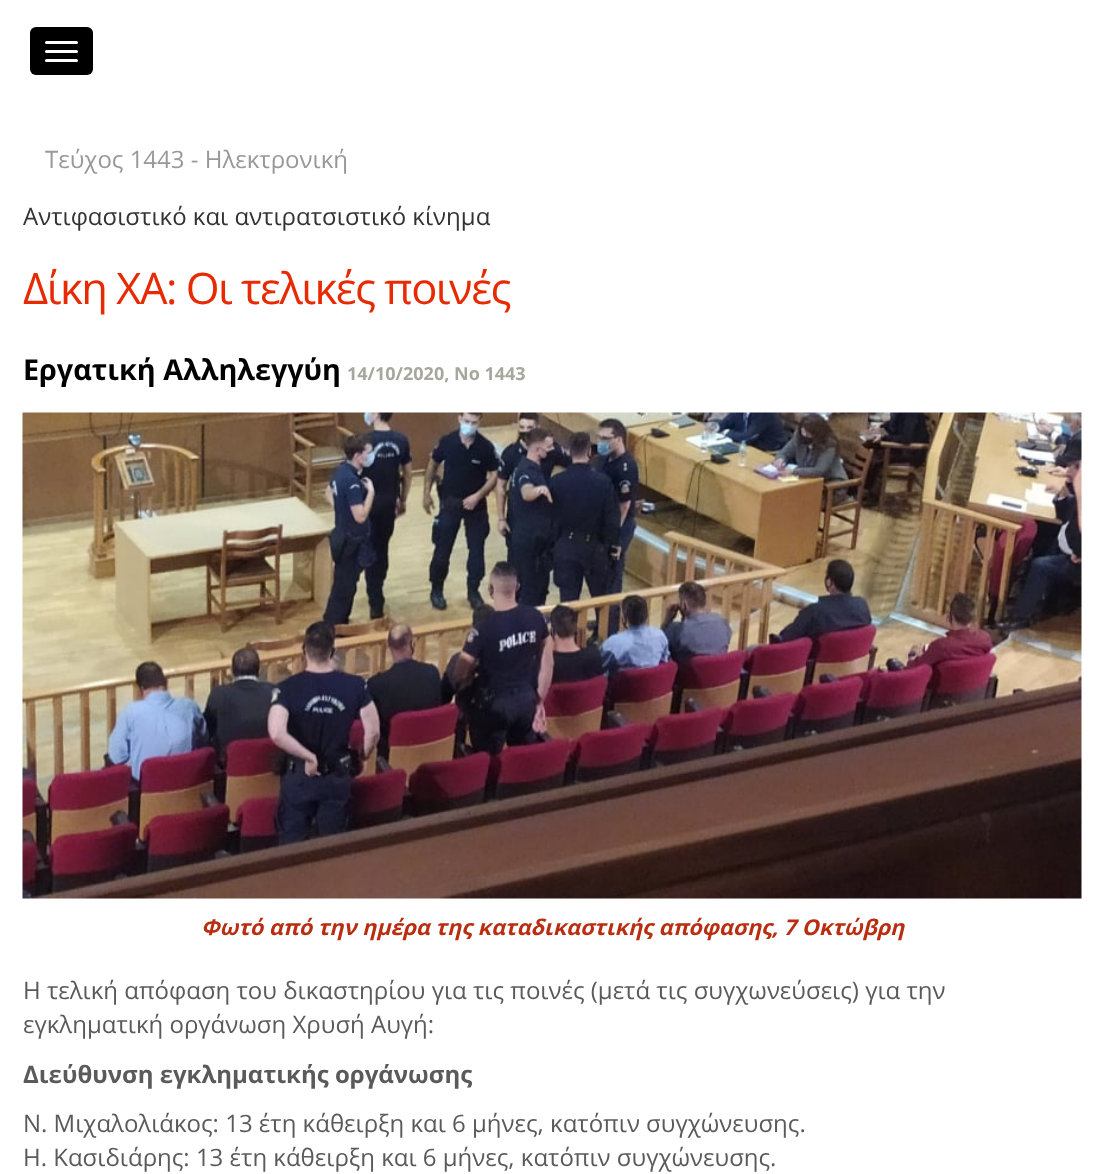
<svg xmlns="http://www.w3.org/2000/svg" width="1103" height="1174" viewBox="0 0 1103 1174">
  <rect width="100%" height="100%" fill="rgb(255,255,255)"/>
  <rect x="30" y="27" width="63" height="48" rx="6" fill="rgb(0,0,0)"/>
  <rect x="45" y="41" width="33" height="3" rx="1.5" fill="rgb(255,255,255)"/>
  <rect x="45" y="50" width="33" height="3" rx="1.5" fill="rgb(255,255,255)"/>
  <rect x="45" y="59" width="33" height="3" rx="1.5" fill="rgb(255,255,255)"/>
  <text x="45" y="168" font-family="Open Sans" font-size="24" fill="rgb(152,152,152)">Τεύχος 1443 - Ηλεκτρονική</text>
  <text x="23" y="225" font-family="Open Sans" font-size="24" fill="rgb(51,51,51)">Αντιφασιστικό και αντιρατσιστικό κίνημα</text>
  <text x="23" y="304" font-family="Open Sans" font-size="43.5" letter-spacing="-1.5" fill="rgb(231,42,2)">Δίκη ΧΑ: Οι τελικές ποινές</text>
  <text x="23" y="380" font-family="Open Sans" font-size="28.75" font-weight="bold" fill="rgb(0,0,0)">Εργατική Αλληλεγγύη</text>
  <text x="347" y="380" font-family="Open Sans" font-size="18" font-weight="bold" fill="rgb(167,167,158)">14/10/2020, No 1443</text>
  <image x="22" y="412" width="1060" height="487" href="pic1.png"/>
  <text x="201" y="935" font-family="Open Sans" font-size="21.6" font-weight="bold" font-style="italic" fill="rgb(185,45,17)">Φωτό από την ημέρα της καταδικαστικής απόφασης, 7 Οκτώβρη</text>
  <g font-family="Open Sans" font-size="24" fill="rgb(90,90,90)">
    <text>
      <tspan x="23" y="999">Η τελική απόφαση του δικαστηρίου για τις ποινές (μετά τις συγχωνεύσεις) για την</tspan>
      <tspan x="23" y="1033">εγκληματική οργάνωση Χρυσή Αυγή:</tspan>
    </text>
  </g>
  <text x="23" y="1083" font-family="Open Sans" font-size="24" font-weight="bold" fill="rgb(90,90,90)">Διεύθυνση εγκληματικής οργάνωσης</text>
  <g font-family="Open Sans" font-size="24" fill="rgb(90,90,90)">
    <text>
      <tspan x="23" y="1132">Ν. Μιχαλολιάκος: 13 έτη κάθειρξη και 6 μήνες, κατόπιν συγχώνευσης.</tspan>
      <tspan x="23" y="1166">Η. Κασιδιάρης: 13 έτη κάθειρξη και 6 μήνες, κατόπιν συγχώνευσης.</tspan>
    </text>
  </g>
</svg>
